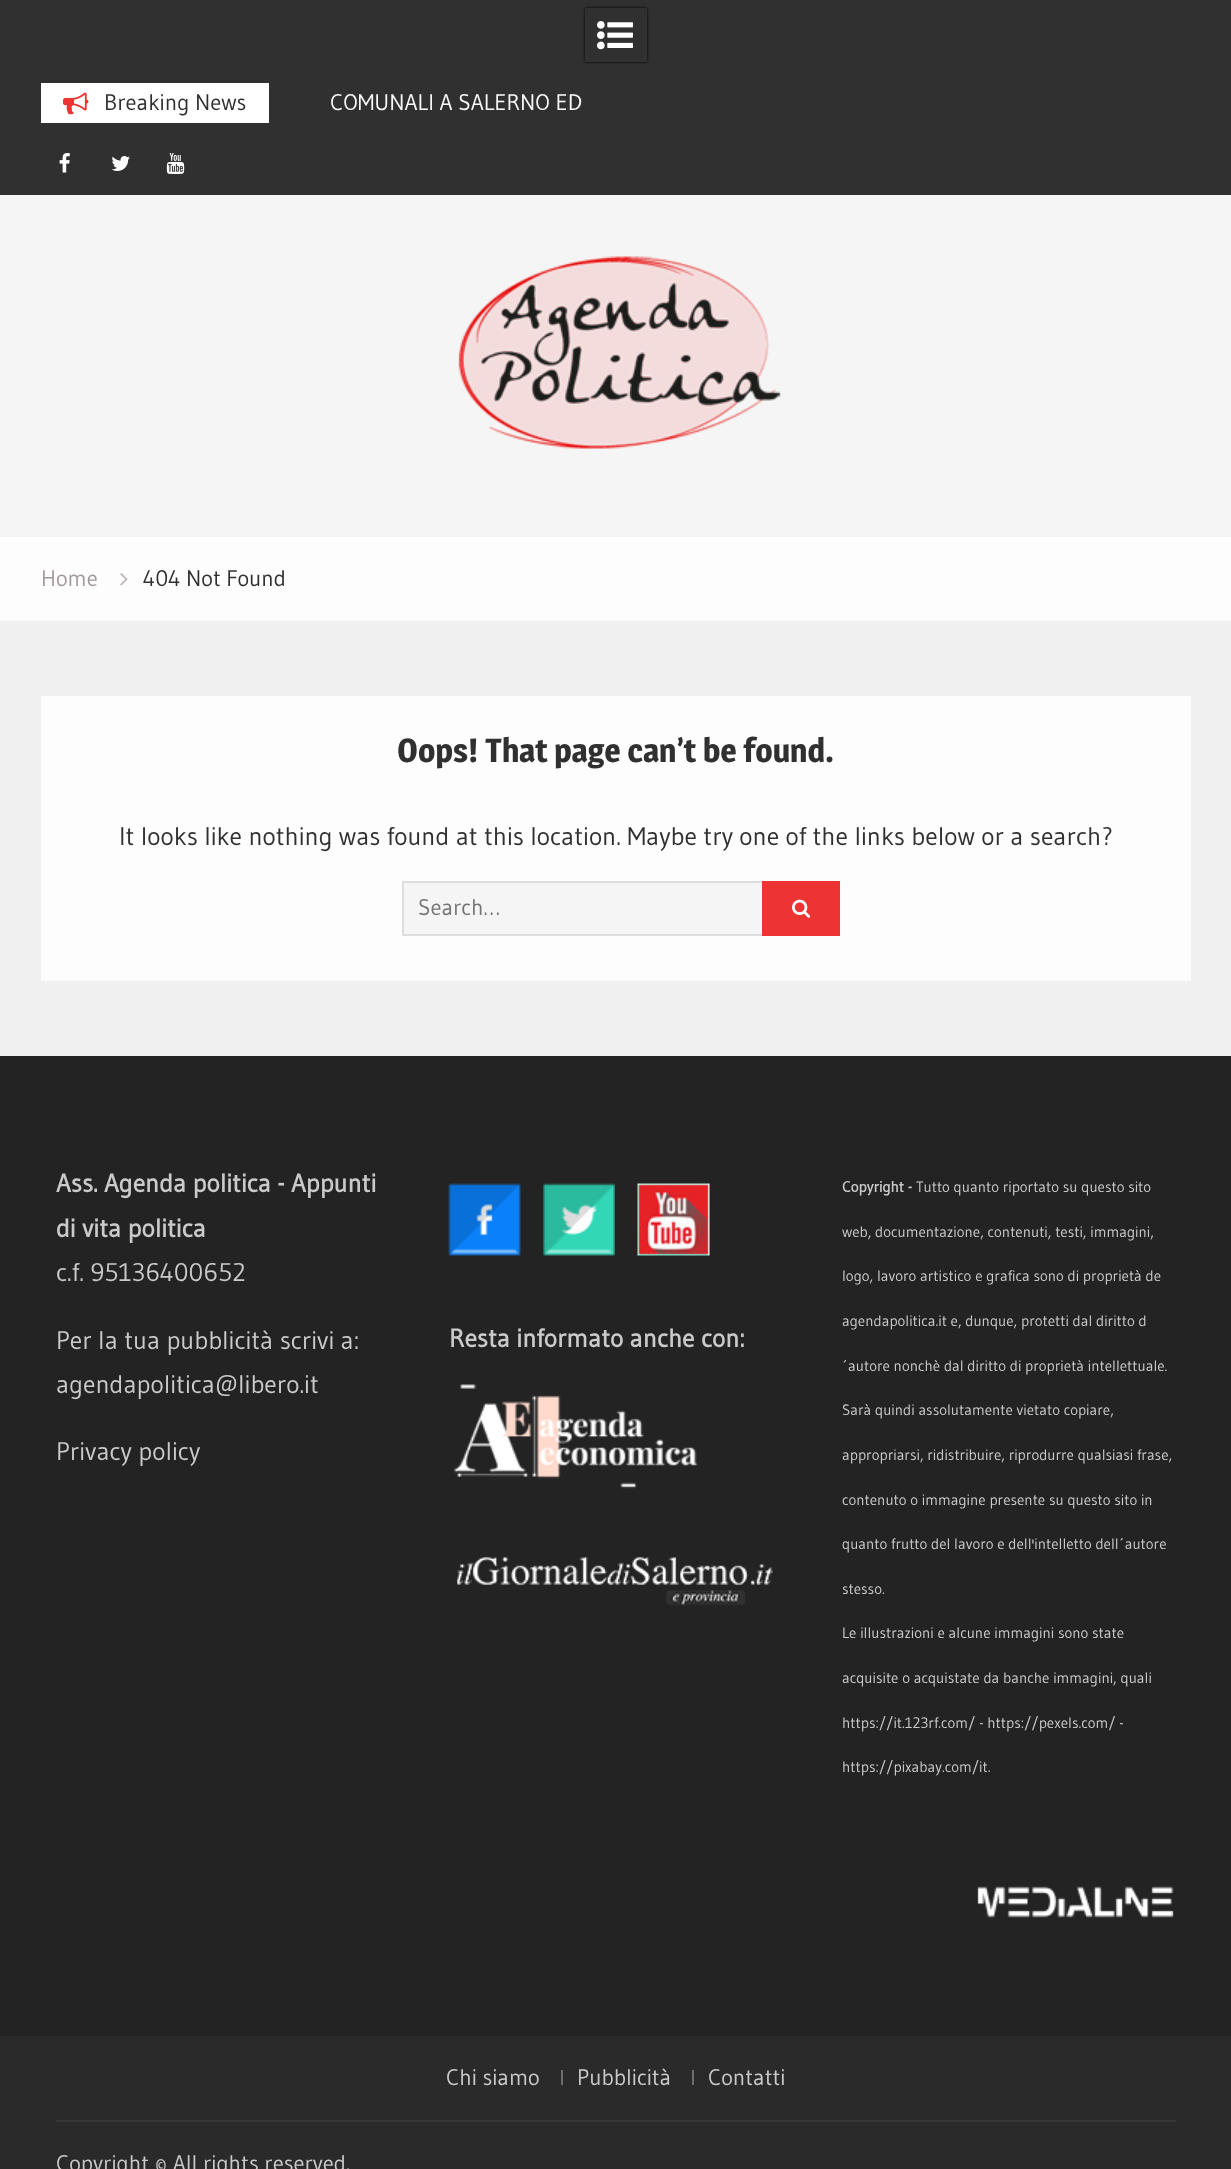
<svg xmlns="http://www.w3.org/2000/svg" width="1231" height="2169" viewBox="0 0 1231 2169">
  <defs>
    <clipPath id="clip1"><path d="M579 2H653V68H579ZM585 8H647V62H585Z" clip-rule="evenodd"/></clipPath>
  </defs>
  <rect width="100%" height="100%" fill="rgb(241,240,240)"/>
  <rect x="0" y="0" width="1231" height="195" fill="rgb(48,48,48)"/>
  <rect x="41" y="83" width="228" height="40" fill="rgb(255,255,255)"/>
  <image x="63" y="92" width="26" height="23" href="pic1.png"/>
  <text x="104" y="110" font-family="Gudea" font-size="22.5" fill="rgb(48,48,48)">Breaking News</text>
  <text x="330" y="110" font-family="Gudea" font-size="22.5" fill="rgb(249,249,249)">COMUNALI A SALERNO ED</text>
  <image x="59" y="153" width="11" height="20" href="pic2.png"/>
  <image x="111" y="156" width="19" height="15" href="pic3.png"/>
  <image x="166" y="153" width="19" height="21" href="pic4.png"/>
  <g clip-path="url(#clip1)">
    <rect x="585" y="8" width="62" height="54" fill="rgb(0,0,0)" filter="blur(1.5px)"/>
  </g>
  <image x="597" y="21" width="36" height="29" href="pic5.png"/>
  <rect x="0" y="195" width="1231" height="342" fill="rgb(245,245,245)"/>
  <image x="458" y="256" width="323" height="193" href="pic6.png"/>
  <rect x="0" y="537" width="1231" height="84" fill="rgb(253,253,253)"/>
  <text x="41" y="586" font-family="Gudea" font-size="22.5" fill="rgb(162,154,154)">Home</text>
  <image x="120" y="573" width="8" height="13" href="pic7.png"/>
  <text x="143" y="586" font-family="Gudea" font-size="22.5" fill="rgb(48,48,48)">404 Not Found</text>
  <rect x="41" y="696" width="1150" height="285" fill="rgb(253,253,253)"/>
  <text x="397" y="762" font-family="Magra" font-size="33" font-weight="bold" fill="rgb(48,48,48)">Oops! That page can’t be found.</text>
  <text x="119" y="845" font-family="Gudea" font-size="25.5" fill="rgb(48,48,48)">It looks like nothing was found at this location. Maybe try one of the links below or a search?</text>
  <rect x="404" y="883" width="358" height="51" fill="rgb(245,245,245)"/>
  <rect x="403" y="882" width="426" height="53" fill="none" stroke="rgb(221,221,221)" stroke-width="2"/>
  <text x="418" y="915" font-family="Gudea" font-size="22.5" fill="rgb(117,117,117)">Search…</text>
  <rect x="762" y="881" width="78" height="55" fill="rgb(238,51,51)"/>
  <image x="792" y="899" width="19" height="19" href="pic8.png"/>
  <rect x="0" y="1056" width="1231" height="980" fill="rgb(35,35,35)"/>
  <g font-family="Gudea" font-size="25.5" font-weight="bold" fill="rgb(202,202,202)">
    <text>
      <tspan x="56" y="1192">Ass. Agenda politica - Appunti</tspan>
      <tspan x="56" y="1237">di vita politica</tspan>
    </text>
  </g>
  <g font-family="Gudea" font-size="25.5" fill="rgb(202,202,202)">
    <text x="56" y="1281">c.f. 95136400652</text>
    <text>
      <tspan x="56" y="1349">Per la tua pubblicità scrivi a:</tspan>
      <tspan x="56" y="1393">agendapolitica@libero.it</tspan>
    </text>
    <text x="56" y="1460">Privacy policy</text>
  </g>
  <image x="448" y="1183" width="73" height="73" href="pic9.png"/>
  <image x="543" y="1183" width="72" height="73" href="pic10.png"/>
  <image x="637" y="1183" width="73" height="73" href="pic11.png"/>
  <text x="449" y="1347" font-family="Gudea" font-size="25.5" font-weight="bold" fill="rgb(202,202,202)">Resta informato anche con:</text>
  <image x="454" y="1384" width="244" height="105" href="pic12.png"/>
  <image x="457" y="1557" width="316" height="48" href="pic13.png"/>
  <text x="842" y="1192" font-family="Gudea" font-size="15" font-weight="bold" fill="rgb(202,202,202)">Copyright -</text>
  <g font-family="Gudea" font-size="15" fill="rgb(202,202,202)">
    <text x="916" y="1192">Tutto quanto riportato su questo sito</text>
    <text x="842" y="1237">web, documentazione, contenuti, testi, immagini,</text>
    <text x="842" y="1281">logo, lavoro artistico e grafica sono di proprietà de</text>
    <text x="842" y="1326">agendapolitica.it e, dunque, protetti dal diritto d</text>
    <text x="842" y="1371">´autore nonchè dal diritto di proprietà intellettuale.</text>
    <text x="842" y="1415">Sarà quindi assolutamente vietato copiare,</text>
    <text x="842" y="1460">appropriarsi, ridistribuire, riprodurre qualsiasi frase,</text>
    <text x="842" y="1505">contenuto o immagine presente su questo sito in</text>
    <text x="842" y="1549">quanto frutto del lavoro e dell'intelletto dell´autore</text>
    <text x="842" y="1594">stesso.</text>
    <text x="842" y="1638">Le illustrazioni e alcune immagini sono state</text>
    <text x="842" y="1683">acquisite o acquistate da banche immagini, quali</text>
    <text x="842" y="1728">https://it.123rf.com/ - https://pexels.com/ -</text>
    <text x="842" y="1772">https://pixabay.com/it.</text>
  </g>
  <image x="977" y="1886" width="197" height="32" href="pic14.png"/>
  <rect x="0" y="2036" width="1231" height="133" fill="rgb(42,42,42)"/>
  <rect x="56" y="2120" width="1120" height="2" fill="rgb(56,55,55)"/>
  <text x="446" y="2085" font-family="Gudea" font-size="22.5" fill="rgb(202,202,202)">Chi siamo</text>
  <rect x="561" y="2070" width="2" height="15" fill="rgb(109,109,109)"/>
  <text x="577" y="2085" font-family="Gudea" font-size="22.5" fill="rgb(202,202,202)">Pubblicità</text>
  <rect x="692" y="2070" width="2" height="15" fill="rgb(109,109,109)"/>
  <g font-family="Gudea" font-size="22.5" fill="rgb(202,202,202)">
    <text x="708" y="2085">Contatti</text>
    <text x="56" y="2171">Copyright © All rights reserved.</text>
  </g>
</svg>
